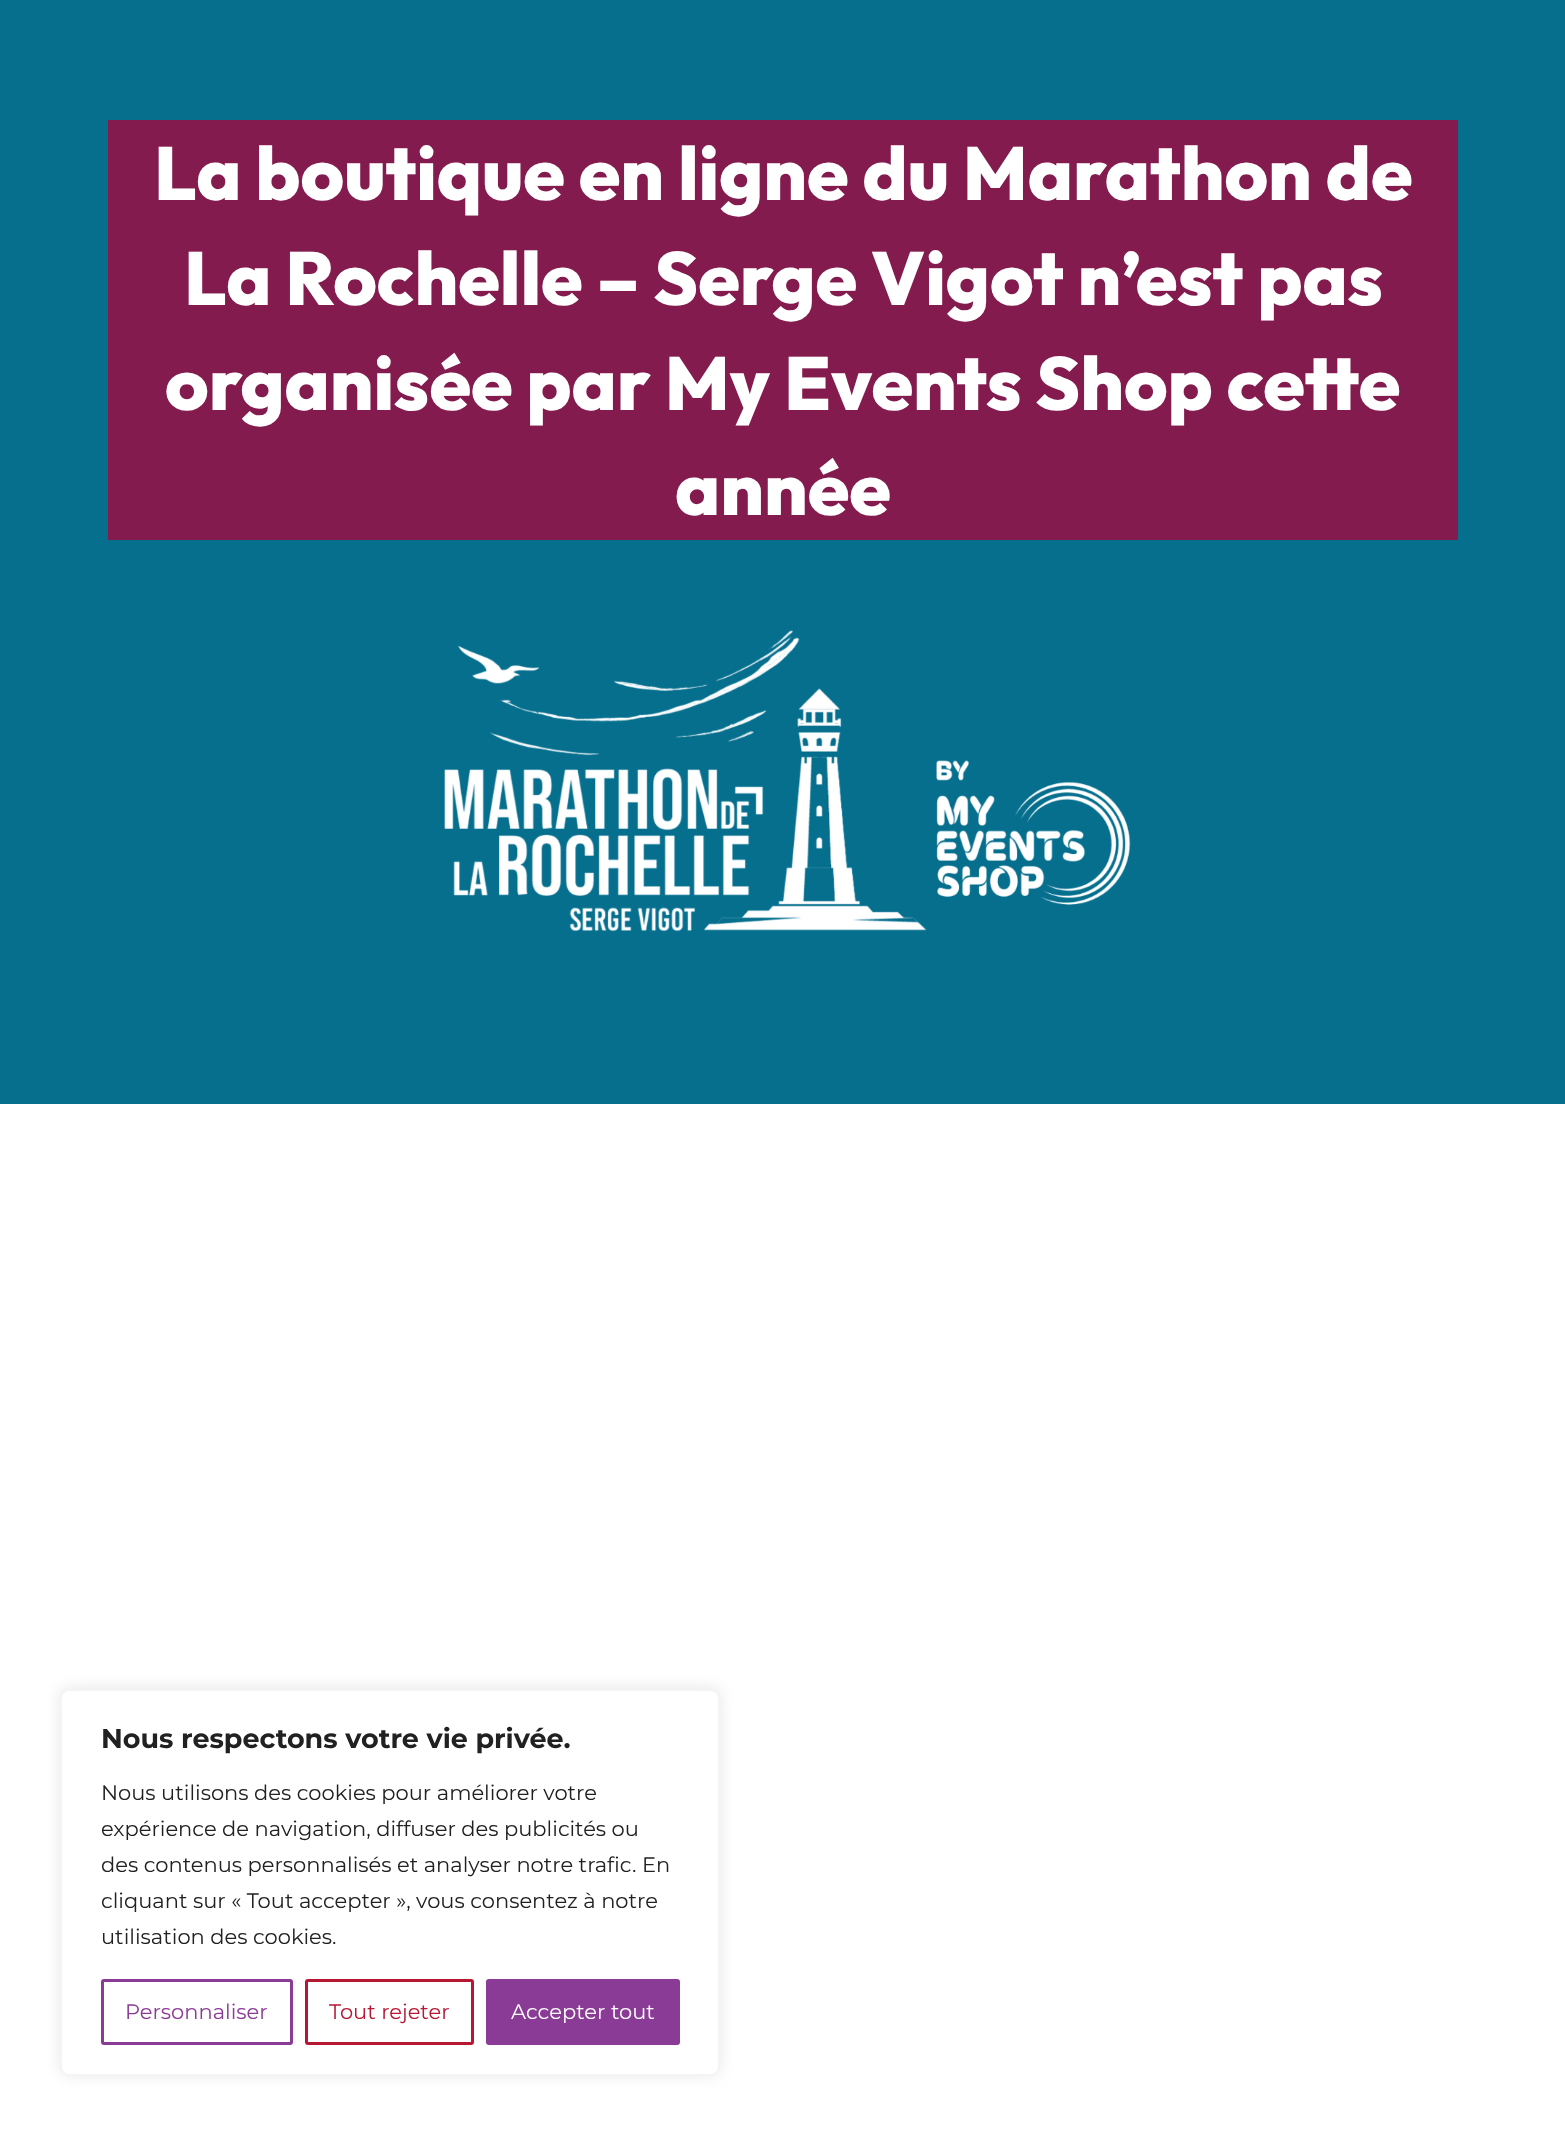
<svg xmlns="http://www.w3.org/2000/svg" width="1565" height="2136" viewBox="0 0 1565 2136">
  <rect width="100%" height="100%" fill="rgb(255,255,255)"/>
  <rect x="0" y="0" width="1565" height="1104" fill="rgb(6,111,142)"/>
  <rect x="108" y="120" width="1350" height="420" fill="rgb(131,27,78)"/>
  <g font-family="Outfit" font-size="75" font-weight="100" fill="rgb(255,255,255)">
    <text x="154" y="200">La boutique en ligne du Marathon de</text>
    <text x="184" y="305">La Rochelle – Serge Vigot n’est pas</text>
    <text x="165" y="410">organisée par My Events Shop cette</text>
    <text x="675" y="515">année</text>
  </g>
  <image x="444" y="630" width="687" height="302" href="pic1.png"/>
  <rect x="60" y="1688" width="660" height="387" rx="9" fill="rgba(172,171,171,0.3)" filter="blur(7.5px)"/>
  <rect x="61" y="1690" width="658" height="385" rx="8" fill="rgb(255,255,255)" stroke="rgb(244,244,244)" stroke-width="2"/>
  <text x="101" y="1748" font-family="Montserrat" font-size="27" font-weight="bold" fill="rgb(33,33,33)">Nous respectons votre vie privée.</text>
  <g font-family="Montserrat" font-size="21" fill="rgb(33,33,33)">
    <text>
      <tspan x="101" y="1800">Nous utilisons des cookies pour améliorer votre</tspan>
      <tspan x="101" y="1836">expérience de navigation, diffuser des publicités ou</tspan>
      <tspan x="101" y="1872">des contenus personnalisés et analyser notre trafic. En</tspan>
      <tspan x="101" y="1908">cliquant sur « Tout accepter », vous consentez à notre</tspan>
      <tspan x="101" y="1944">utilisation des cookies.</tspan>
    </text>
  </g>
  <rect x="102.5" y="1980.5" width="189" height="63" rx="1.5" fill="none" stroke="rgb(138,59,150)" stroke-width="3"/>
  <text x="125" y="2019" font-family="Montserrat" font-size="21" fill="rgb(138,59,150)">Personnaliser</text>
  <rect x="306.5" y="1980.5" width="166" height="63" rx="1.5" fill="none" stroke="rgb(182,23,50)" stroke-width="3"/>
  <text x="329" y="2019" font-family="Montserrat" font-size="21" fill="rgb(182,23,50)">Tout rejeter</text>
  <rect x="487.5" y="1980.5" width="191" height="63" rx="1.5" fill="rgb(138,59,150)" stroke="rgb(138,59,150)" stroke-width="3"/>
  <text x="511" y="2019" font-family="Montserrat" font-size="21" fill="rgb(255,255,255)">Accepter tout</text>
</svg>
